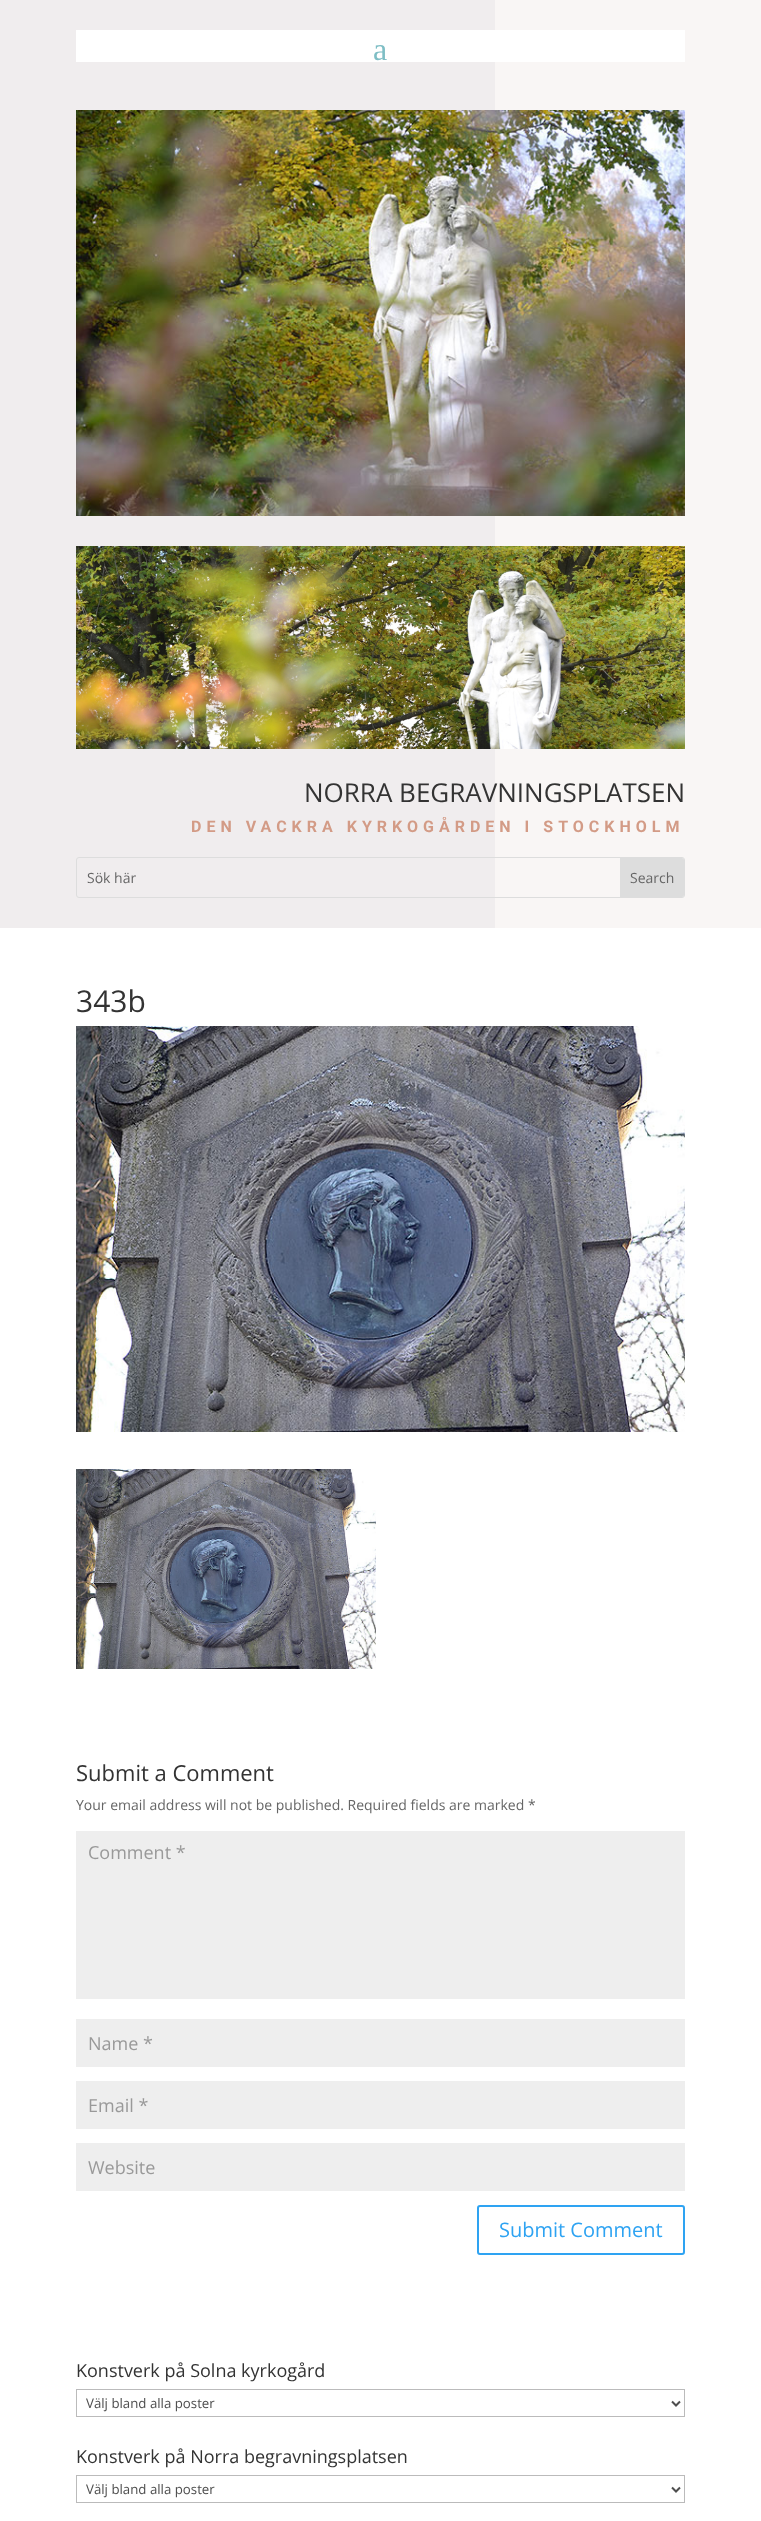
<svg xmlns="http://www.w3.org/2000/svg" width="761" height="2521" viewBox="0 0 761 2521">
  <rect width="100%" height="100%" fill="rgb(255,255,255)"/>
  <rect x="0" y="0" width="495" height="928" fill="rgb(240,237,238)"/>
  <rect x="495" y="0" width="266" height="928" fill="rgb(249,246,245)"/>
  <rect x="76" y="30" width="609" height="32" fill="rgb(255,255,255)"/>
  <text x="373" y="60" font-family="Liberation Serif" font-size="32" fill="rgb(126,190,197)">a</text>
  <image x="76" y="110" width="609" height="406" href="pic1.png"/>
  <image x="76" y="546" width="609" height="203" href="pic2.png"/>
  <text x="304" y="802" font-family="Open Sans" font-size="26" fill="rgb(51,51,51)">NORRA BEGRAVNINGSPLATSEN</text>
  <text x="191" y="832" font-family="Roboto" font-size="16" font-weight="bold" letter-spacing="5" fill="rgb(211,155,134)">DEN VACKRA KYRKOGÅRDEN I STOCKHOLM</text>
  <rect x="76.5" y="857.5" width="608" height="40" rx="2.5" fill="none" stroke="rgb(221,221,221)"/>
  <text x="87" y="883" font-family="Open Sans" font-size="14" fill="rgb(102,102,102)">Sök här</text>
  <path d="M620 858H682C683 858 684 859 684 860V895C684 896 683 897 682 897H620Z" fill="rgb(221,221,221)"/>
  <text x="630" y="883" font-family="Open Sans" font-size="14" fill="rgb(102,102,102)">Search</text>
  <text x="76" y="1012" font-family="Open Sans" font-size="30" fill="rgb(51,51,51)">343b</text>
  <image x="76" y="1026" width="609" height="406" href="pic3.png"/>
  <image x="76" y="1469" width="300" height="200" href="pic4.png"/>
  <text x="76" y="1781" font-family="Open Sans" font-size="22" fill="rgb(51,51,51)">Submit a Comment</text>
  <text x="76" y="1810" font-family="Open Sans" font-size="14" fill="rgb(102,102,102)">Your email address will not be published. Required fields are marked *</text>
  <rect x="76" y="1831" width="609" height="168" fill="rgb(238,238,238)"/>
  <text x="88" y="1859" font-family="Open Sans" font-size="18" fill="rgb(153,153,153)">Comment *</text>
  <rect x="76" y="2019" width="609" height="48" fill="rgb(238,238,238)"/>
  <text x="88" y="2050" font-family="Open Sans" font-size="18" fill="rgb(153,153,153)">Name *</text>
  <rect x="76" y="2081" width="609" height="48" fill="rgb(238,238,238)"/>
  <text x="88" y="2112" font-family="Open Sans" font-size="18" fill="rgb(153,153,153)">Email *</text>
  <rect x="76" y="2143" width="609" height="48" fill="rgb(238,238,238)"/>
  <text x="88" y="2174" font-family="Open Sans" font-size="18" fill="rgb(153,153,153)">Website</text>
  <rect x="478" y="2206" width="206" height="48" rx="2" fill="none" stroke="rgb(46,163,242)" stroke-width="2"/>
  <text x="499" y="2237" font-family="Open Sans" font-size="20" fill="rgb(46,163,242)">Submit Comment</text>
  <text x="76" y="2377" font-family="Open Sans" font-size="18" fill="rgb(51,51,51)">Konstverk på Solna kyrkogård</text>
  <rect x="76.5" y="2389.5" width="608" height="27" fill="none" stroke="rgb(187,187,187)"/>
  <path d="M672 2401.5L676 2405.5L680 2401.5" fill="none" stroke="rgb(78,78,78)" stroke-width="2"/>
  <text x="86" y="2408" font-family="Open Sans" font-size="13.25" fill="rgb(78,78,78)">Välj bland alla poster</text>
  <text x="76" y="2463" font-family="Open Sans" font-size="18" fill="rgb(51,51,51)">Konstverk på Norra begravningsplatsen</text>
  <rect x="76.5" y="2475.5" width="608" height="27" fill="none" stroke="rgb(187,187,187)"/>
  <path d="M672 2487.5L676 2491.5L680 2487.5" fill="none" stroke="rgb(78,78,78)" stroke-width="2"/>
  <text x="86" y="2494" font-family="Open Sans" font-size="13.25" fill="rgb(78,78,78)">Välj bland alla poster</text>
</svg>
